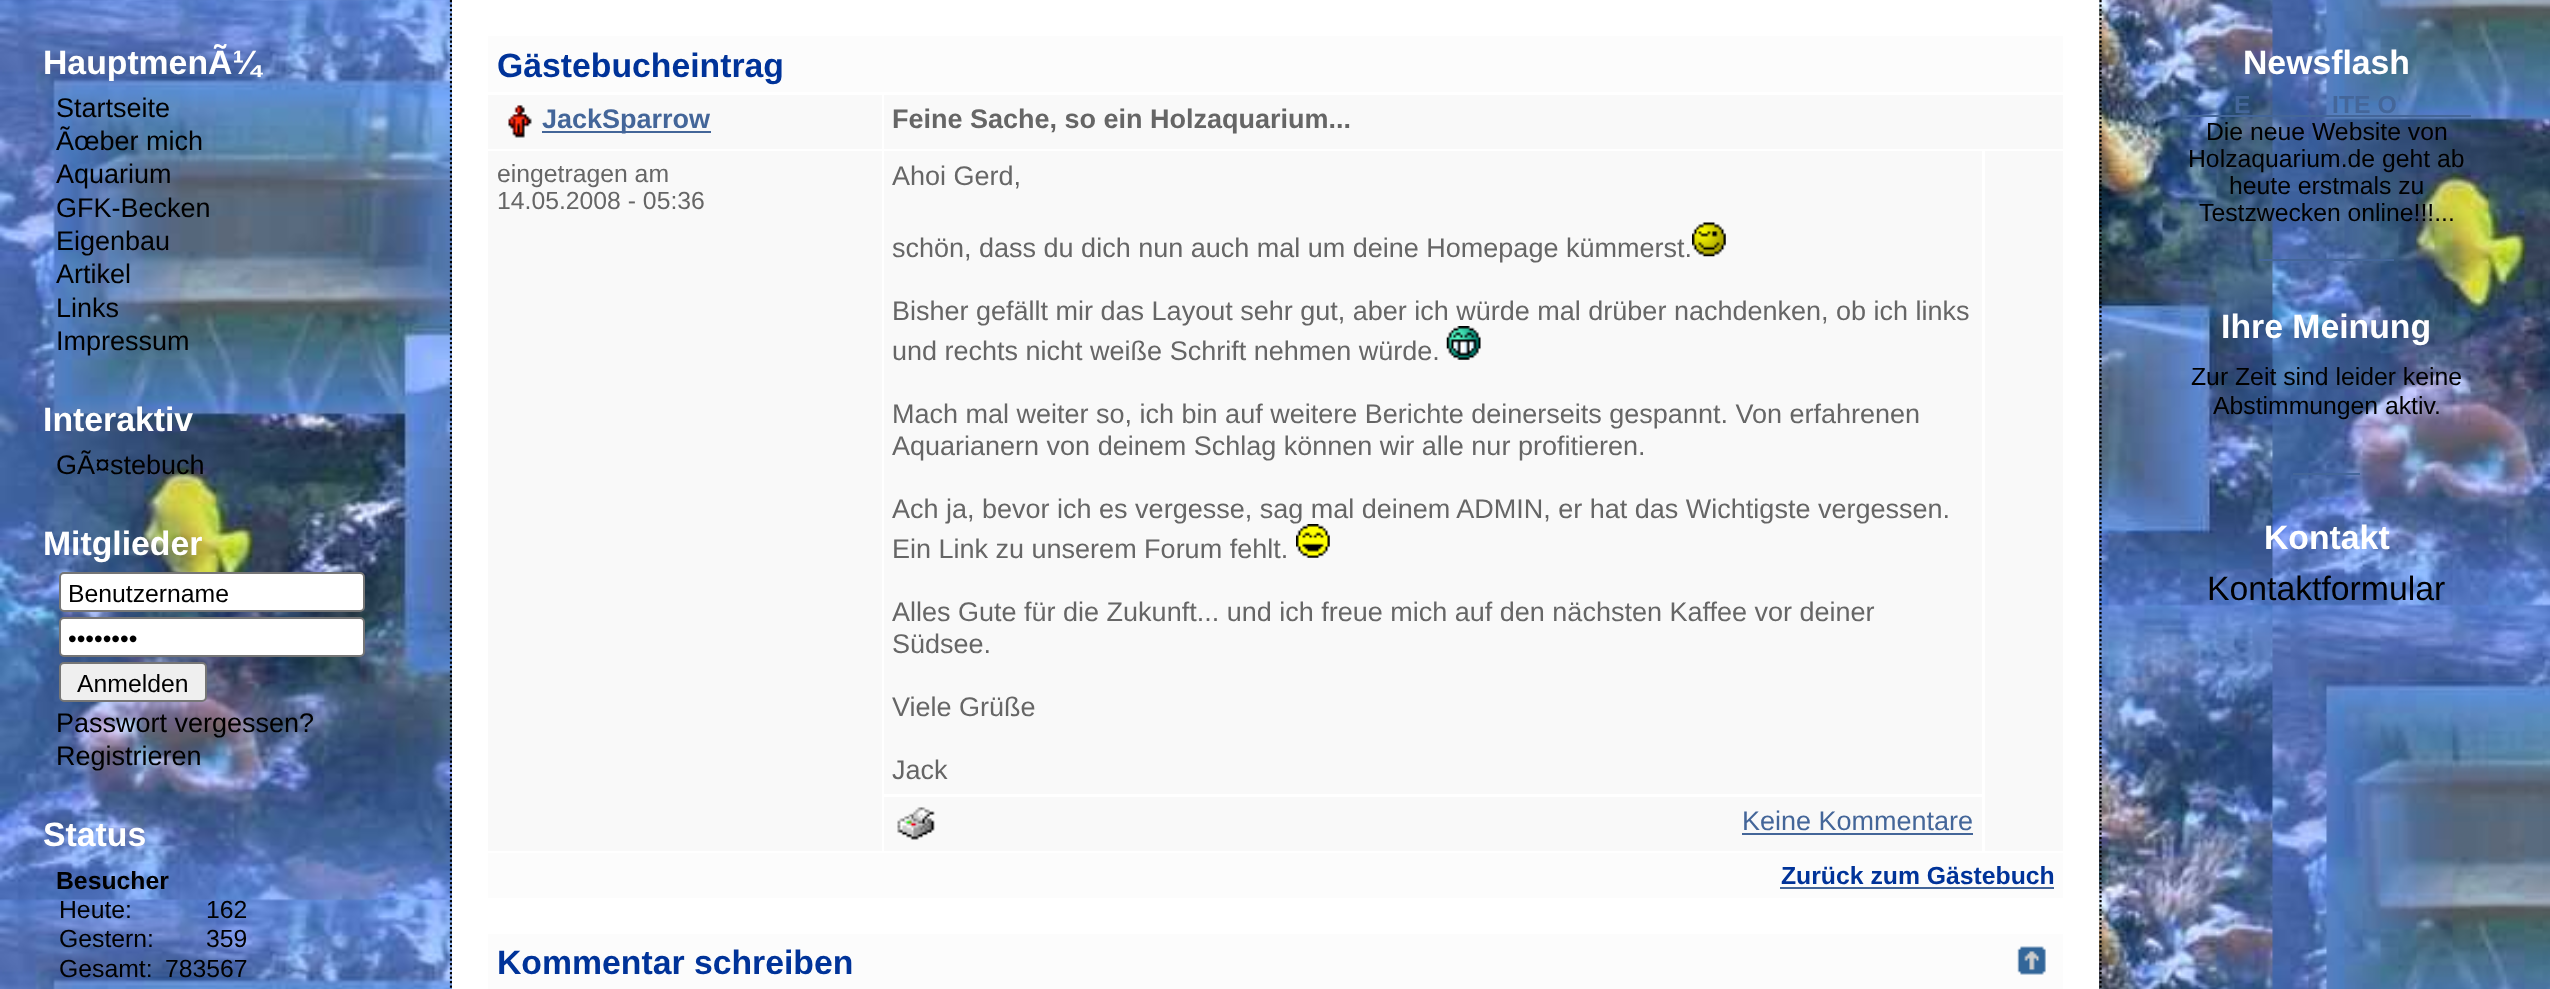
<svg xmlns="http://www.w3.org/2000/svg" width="2550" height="989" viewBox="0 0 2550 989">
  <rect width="100%" height="100%" fill="rgb(255,255,255)"/>
  <image x="2099" y="0" width="451" height="989" href="pic1.png"/>
  <path d="M0-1H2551.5" fill="none" stroke="rgb(0,0,0)" stroke-width="2.2" stroke-dasharray="2.25 2.25"/>
  <image x="0" y="0" width="452" height="989" href="pic2.png"/>
  <path d="M451 0V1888" fill="none" stroke="rgb(0,0,0)" stroke-width="2.2" stroke-dasharray="2.25 2.25"/>
  <text x="43" y="74" font-family="Liberation Sans" font-size="33.75" font-weight="bold" fill="rgb(255,255,255)">HauptmenÃ¼</text>
  <g font-family="Liberation Sans" font-size="27" fill="rgb(0,0,0)">
    <text>
      <tspan x="56" y="117">Startseite</tspan>
      <tspan x="56" y="150">Ãœber mich</tspan>
      <tspan x="56" y="183">Aquarium</tspan>
      <tspan x="56" y="217">GFK-Becken</tspan>
      <tspan x="56" y="250">Eigenbau</tspan>
      <tspan x="56" y="283">Artikel</tspan>
      <tspan x="56" y="317">Links</tspan>
      <tspan x="56" y="350">Impressum</tspan>
    </text>
  </g>
  <text x="43" y="431" font-family="Liberation Sans" font-size="33.75" font-weight="bold" fill="rgb(255,255,255)">Interaktiv</text>
  <text x="56" y="474" font-family="Liberation Sans" font-size="27" fill="rgb(0,0,0)">GÃ¤stebuch</text>
  <text x="43" y="555" font-family="Liberation Sans" font-size="33.75" font-weight="bold" fill="rgb(255,255,255)">Mitglieder</text>
  <rect x="60" y="573" width="304" height="38" rx="4" fill="rgb(255,255,255)" stroke="rgb(118,118,118)" stroke-width="2"/>
  <text x="68" y="602" font-family="Liberation Sans" font-size="24.75" fill="rgb(0,0,0)">Benutzername</text>
  <rect x="60" y="618" width="304" height="38" rx="4" fill="rgb(255,255,255)" stroke="rgb(118,118,118)" stroke-width="2"/>
  <text x="68" y="647" font-family="Liberation Sans" font-size="24.75" fill="rgb(0,0,0)">••••••••</text>
  <rect x="60" y="663" width="146" height="38" rx="4" fill="rgb(239,239,239)" stroke="rgb(118,118,118)" stroke-width="2"/>
  <text x="77" y="692" font-family="Liberation Sans" font-size="24.75" fill="rgb(0,0,0)">Anmelden</text>
  <g font-family="Liberation Sans" font-size="27" fill="rgb(0,0,0)">
    <text>
      <tspan x="56" y="732">Passwort vergessen?</tspan>
      <tspan x="56" y="765">Registrieren</tspan>
    </text>
  </g>
  <text x="43" y="846" font-family="Liberation Sans" font-size="33.75" font-weight="bold" fill="rgb(255,255,255)">Status</text>
  <text x="56" y="889" font-family="Liberation Sans" font-size="24.75" font-weight="bold" fill="rgb(0,0,0)">Besucher</text>
  <g font-family="Liberation Sans" font-size="24.75" fill="rgb(0,0,0)">
    <text x="59" y="918">Heute:</text>
    <text x="206" y="918">162</text>
    <text x="59" y="947">Gestern:</text>
    <text x="206" y="947">359</text>
    <text x="59" y="977">Gesamt:</text>
    <text x="165" y="977">783567</text>
  </g>
  <rect x="452" y="0" width="1647" height="988" fill="rgb(255,255,255)"/>
  <rect x="488" y="36" width="1575" height="56" fill="rgb(252,252,252)"/>
  <text x="497" y="77" font-family="Liberation Sans" font-size="33.75" font-weight="bold" fill="rgb(0,51,153)">Gästebucheintrag</text>
  <rect x="488" y="95" width="394" height="54" fill="rgb(249,249,249)"/>
  <image x="508" y="105" width="24" height="33" href="pic3.png"/>
  <rect x="542" y="131" width="169" height="2" fill="rgb(68,102,153)"/>
  <text x="542" y="128" font-family="Liberation Sans" font-size="27" font-weight="bold" fill="rgb(68,102,153)">JackSparrow</text>
  <rect x="884" y="95" width="1179" height="54" fill="rgb(249,249,249)"/>
  <text x="892" y="128" font-family="Liberation Sans" font-size="27" font-weight="bold" fill="rgb(102,102,102)">Feine Sache, so ein Holzaquarium...</text>
  <rect x="488" y="151" width="394" height="700" fill="rgb(249,249,249)"/>
  <g font-family="Liberation Sans" font-size="24.75" fill="rgb(102,102,102)">
    <text>
      <tspan x="497" y="182">eingetragen am</tspan>
      <tspan x="497" y="209">14.05.2008 - 05:36</tspan>
    </text>
  </g>
  <rect x="884" y="151" width="1098" height="643" fill="rgb(249,249,249)"/>
  <g font-family="Liberation Sans" font-size="27" fill="rgb(102,102,102)">
    <text x="892" y="185">Ahoi Gerd,</text>
    <text x="892" y="257">schön, dass du dich nun auch mal um deine Homepage kümmerst.</text>
  </g>
  <image x="1692" y="222" width="34" height="35" href="pic4.png"/>
  <g font-family="Liberation Sans" font-size="27" fill="rgb(102,102,102)">
    <text>
      <tspan x="892" y="320">Bisher gefällt mir das Layout sehr gut, aber ich würde mal drüber nachdenken, ob ich links</tspan>
      <tspan x="892" y="360">und rechts nicht weiße Schrift nehmen würde.</tspan>
    </text>
  </g>
  <image x="1446" y="326" width="35" height="34" href="pic5.png"/>
  <g font-family="Liberation Sans" font-size="27" fill="rgb(102,102,102)">
    <text>
      <tspan x="892" y="423">Mach mal weiter so, ich bin auf weitere Berichte deinerseits gespannt. Von erfahrenen</tspan>
      <tspan x="892" y="455">Aquarianern von deinem Schlag können wir alle nur profitieren.</tspan>
    </text>
    <text>
      <tspan x="892" y="518">Ach ja, bevor ich es vergesse, sag mal deinem ADMIN, er hat das Wichtigste vergessen.</tspan>
      <tspan x="892" y="558">Ein Link zu unserem Forum fehlt.</tspan>
    </text>
  </g>
  <image x="1296" y="524" width="34" height="34" href="pic6.png"/>
  <g font-family="Liberation Sans" font-size="27" fill="rgb(102,102,102)">
    <text>
      <tspan x="892" y="621">Alles Gute für die Zukunft... und ich freue mich auf den nächsten Kaffee vor deiner</tspan>
      <tspan x="892" y="653">Südsee.</tspan>
    </text>
    <text x="892" y="716">Viele Grüße</text>
    <text x="892" y="779">Jack</text>
  </g>
  <rect x="1985" y="151" width="78" height="700" fill="rgb(249,249,249)"/>
  <rect x="884" y="797" width="1098" height="54" fill="rgb(249,249,249)"/>
  <image x="897" y="807" width="38" height="33" href="pic7.png"/>
  <text x="1742" y="830" font-family="Liberation Sans" font-size="27" fill="rgb(68,102,153)">Keine Kommentare</text>
  <rect x="1742" y="833" width="231" height="2" fill="rgb(68,102,153)"/>
  <rect x="488" y="853" width="1575" height="45" fill="rgb(252,252,252)"/>
  <text x="1781" y="884" font-family="Liberation Sans" font-size="24.75" font-weight="bold" fill="rgb(0,51,153)">Zurück zum Gästebuch</text>
  <rect x="1780" y="887" width="274" height="2" fill="rgb(68,102,153)"/>
  <rect x="488" y="934" width="1575" height="55" fill="rgb(252,252,252)"/>
  <text x="497" y="974" font-family="Liberation Sans" font-size="33.75" font-weight="bold" fill="rgb(0,51,153)">Kommentar schreiben</text>
  <image x="2017" y="946" width="29" height="29" href="pic8.png"/>
  <path d="M2100.5 0V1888" fill="none" stroke="rgb(0,0,0)" stroke-width="2.2" stroke-dasharray="2.25 2.25"/>
  <text x="2243" y="74" font-family="Liberation Sans" font-size="33.75" font-weight="bold" fill="rgb(255,255,255)">Newsflash</text>
  <g font-family="Liberation Sans" font-size="24.75" font-weight="bold" fill="rgb(68,102,153)">
    <text x="2234" y="113">E</text>
    <text x="2332" y="113">ITE O</text>
  </g>
  <rect x="2183" y="115" width="288" height="2" fill="rgb(68,102,153)"/>
  <g font-family="Liberation Sans" font-size="24.75" fill="rgb(0,0,0)">
    <text x="2206" y="140">Die neue Website von</text>
    <text x="2188" y="167">Holzaquarium.de geht ab</text>
    <text x="2229" y="194">heute erstmals zu</text>
    <text x="2199" y="221">Testzwecken online!!!...</text>
  </g>
  <rect x="2259" y="259" width="135" height="2" fill="rgb(68,102,153)"/>
  <text x="2221" y="338" font-family="Liberation Sans" font-size="33.75" font-weight="bold" fill="rgb(255,255,255)">Ihre Meinung</text>
  <g font-family="Liberation Sans" font-size="24.75" fill="rgb(0,0,0)">
    <text x="2191" y="385">Zur Zeit sind leider keine</text>
    <text x="2213" y="414">Abstimmungen aktiv.</text>
  </g>
  <rect x="2293" y="473" width="67" height="2" fill="rgb(68,102,153)"/>
  <text x="2264" y="549" font-family="Liberation Sans" font-size="33.75" font-weight="bold" fill="rgb(255,255,255)">Kontakt</text>
  <text x="2207" y="600" font-family="Liberation Sans" font-size="33.75" fill="rgb(0,0,0)">Kontaktformular</text>
</svg>
